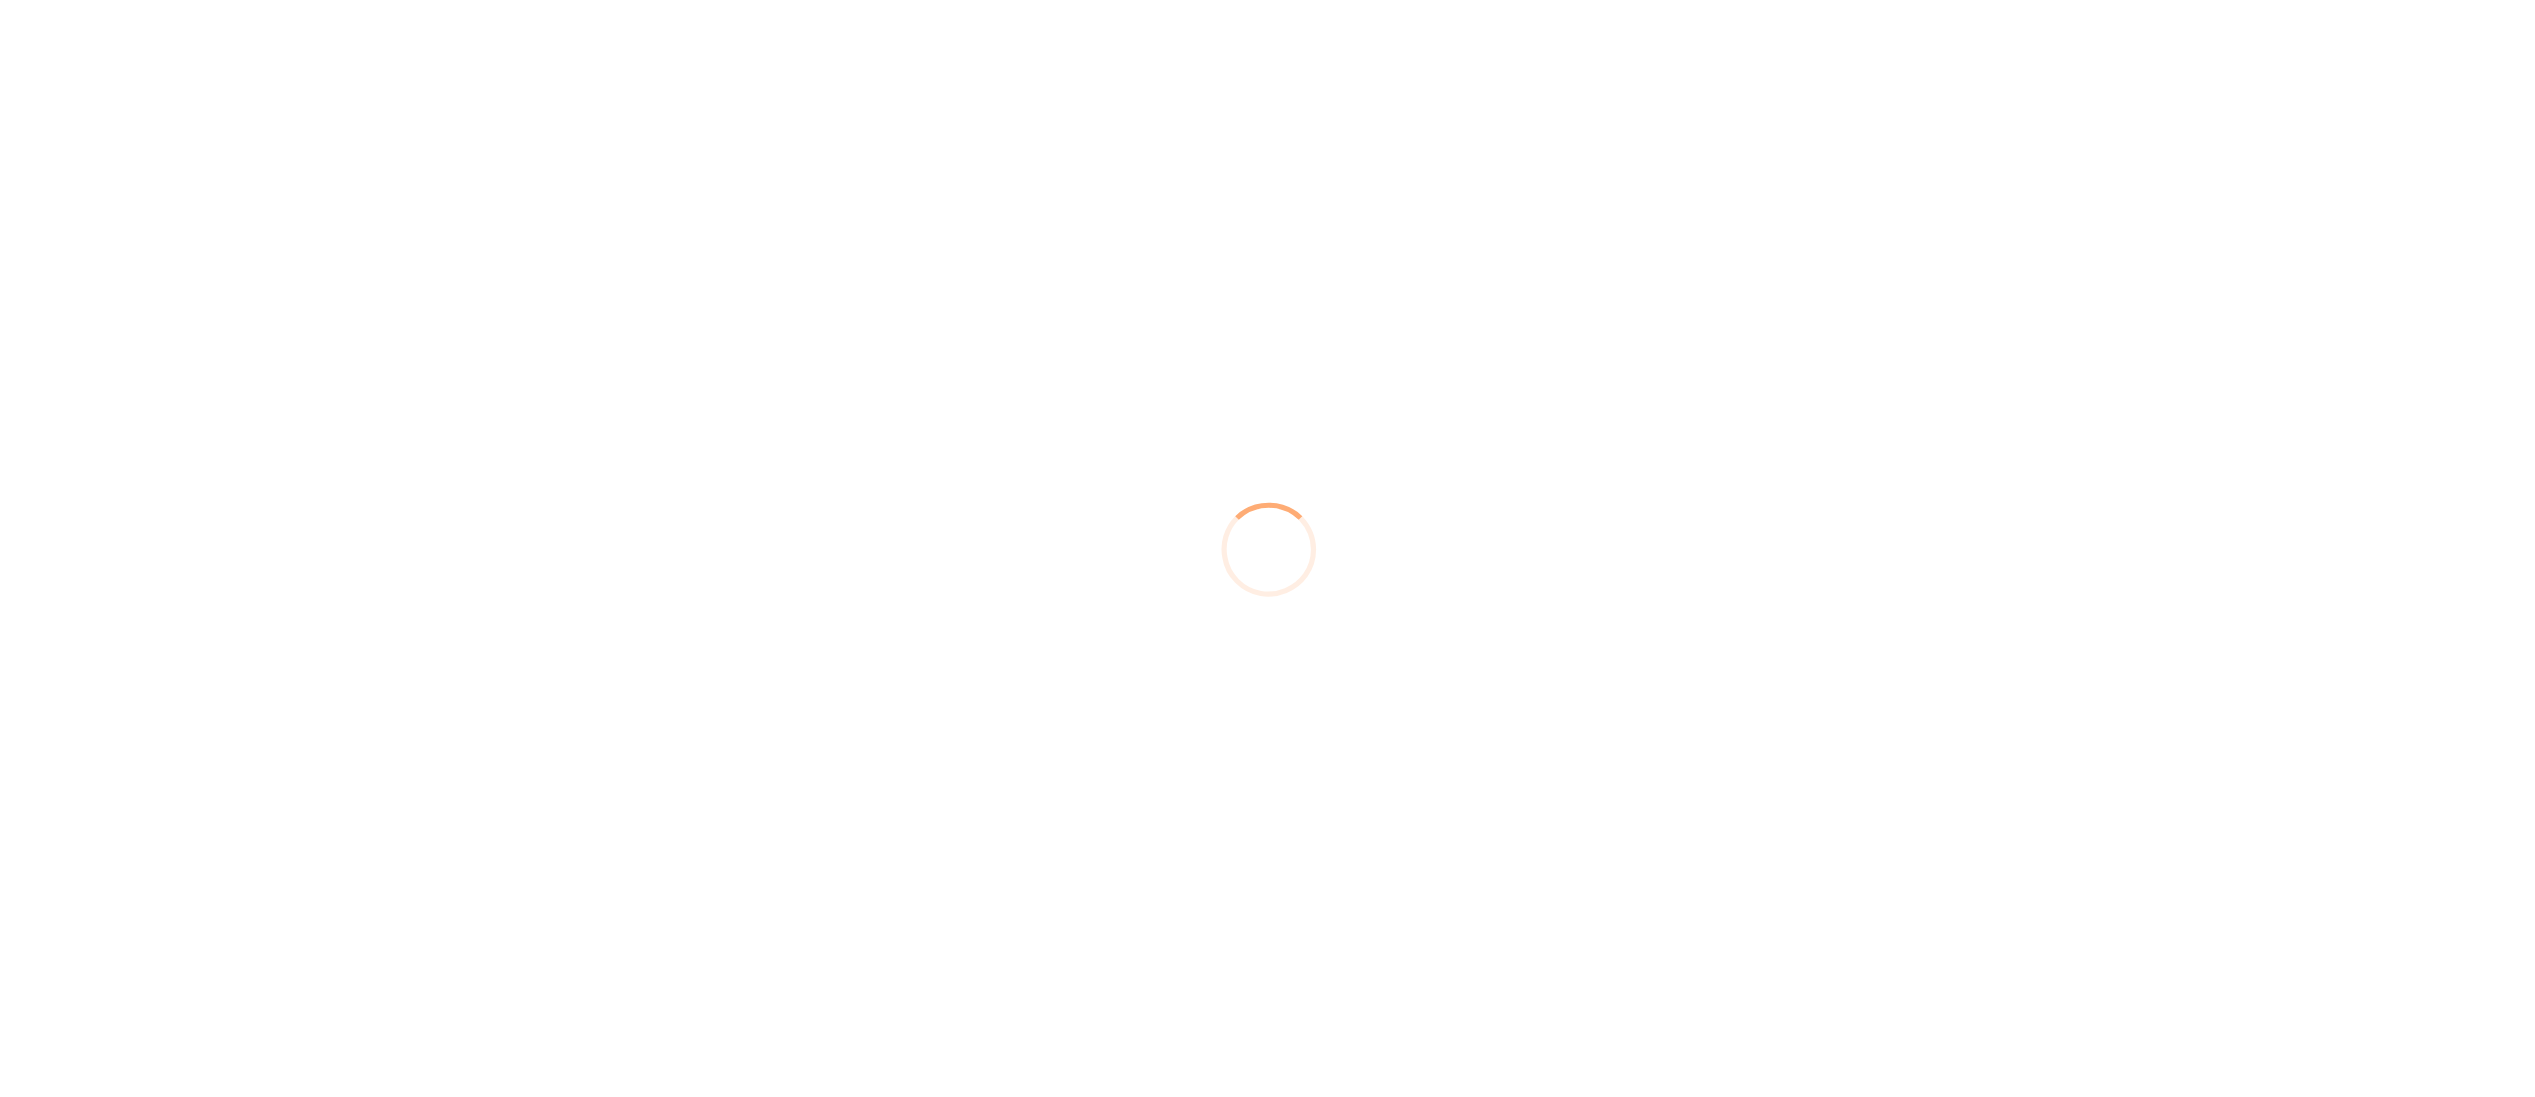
<svg xmlns="http://www.w3.org/2000/svg" width="2535" height="1097" viewBox="0 0 2535 1097">
  <rect width="100%" height="100%" fill="rgb(255,255,255)"/>
  <path d="M1237 518C1254.5 501 1283 501 1300.5 518" fill="none" stroke="rgb(254,172,117)" stroke-width="5.2"/>
  <path d="M1300.5 518C1308.5 526.5 1313.5 537.5 1313.5 549.5C1313.5 589 1265 609 1237 581C1231 575 1226.5 567 1225 558C1222 543.5 1226.5 528.5 1237 518" fill="none" stroke="rgba(254,172,117,0.2)" stroke-width="5.2"/>
</svg>
